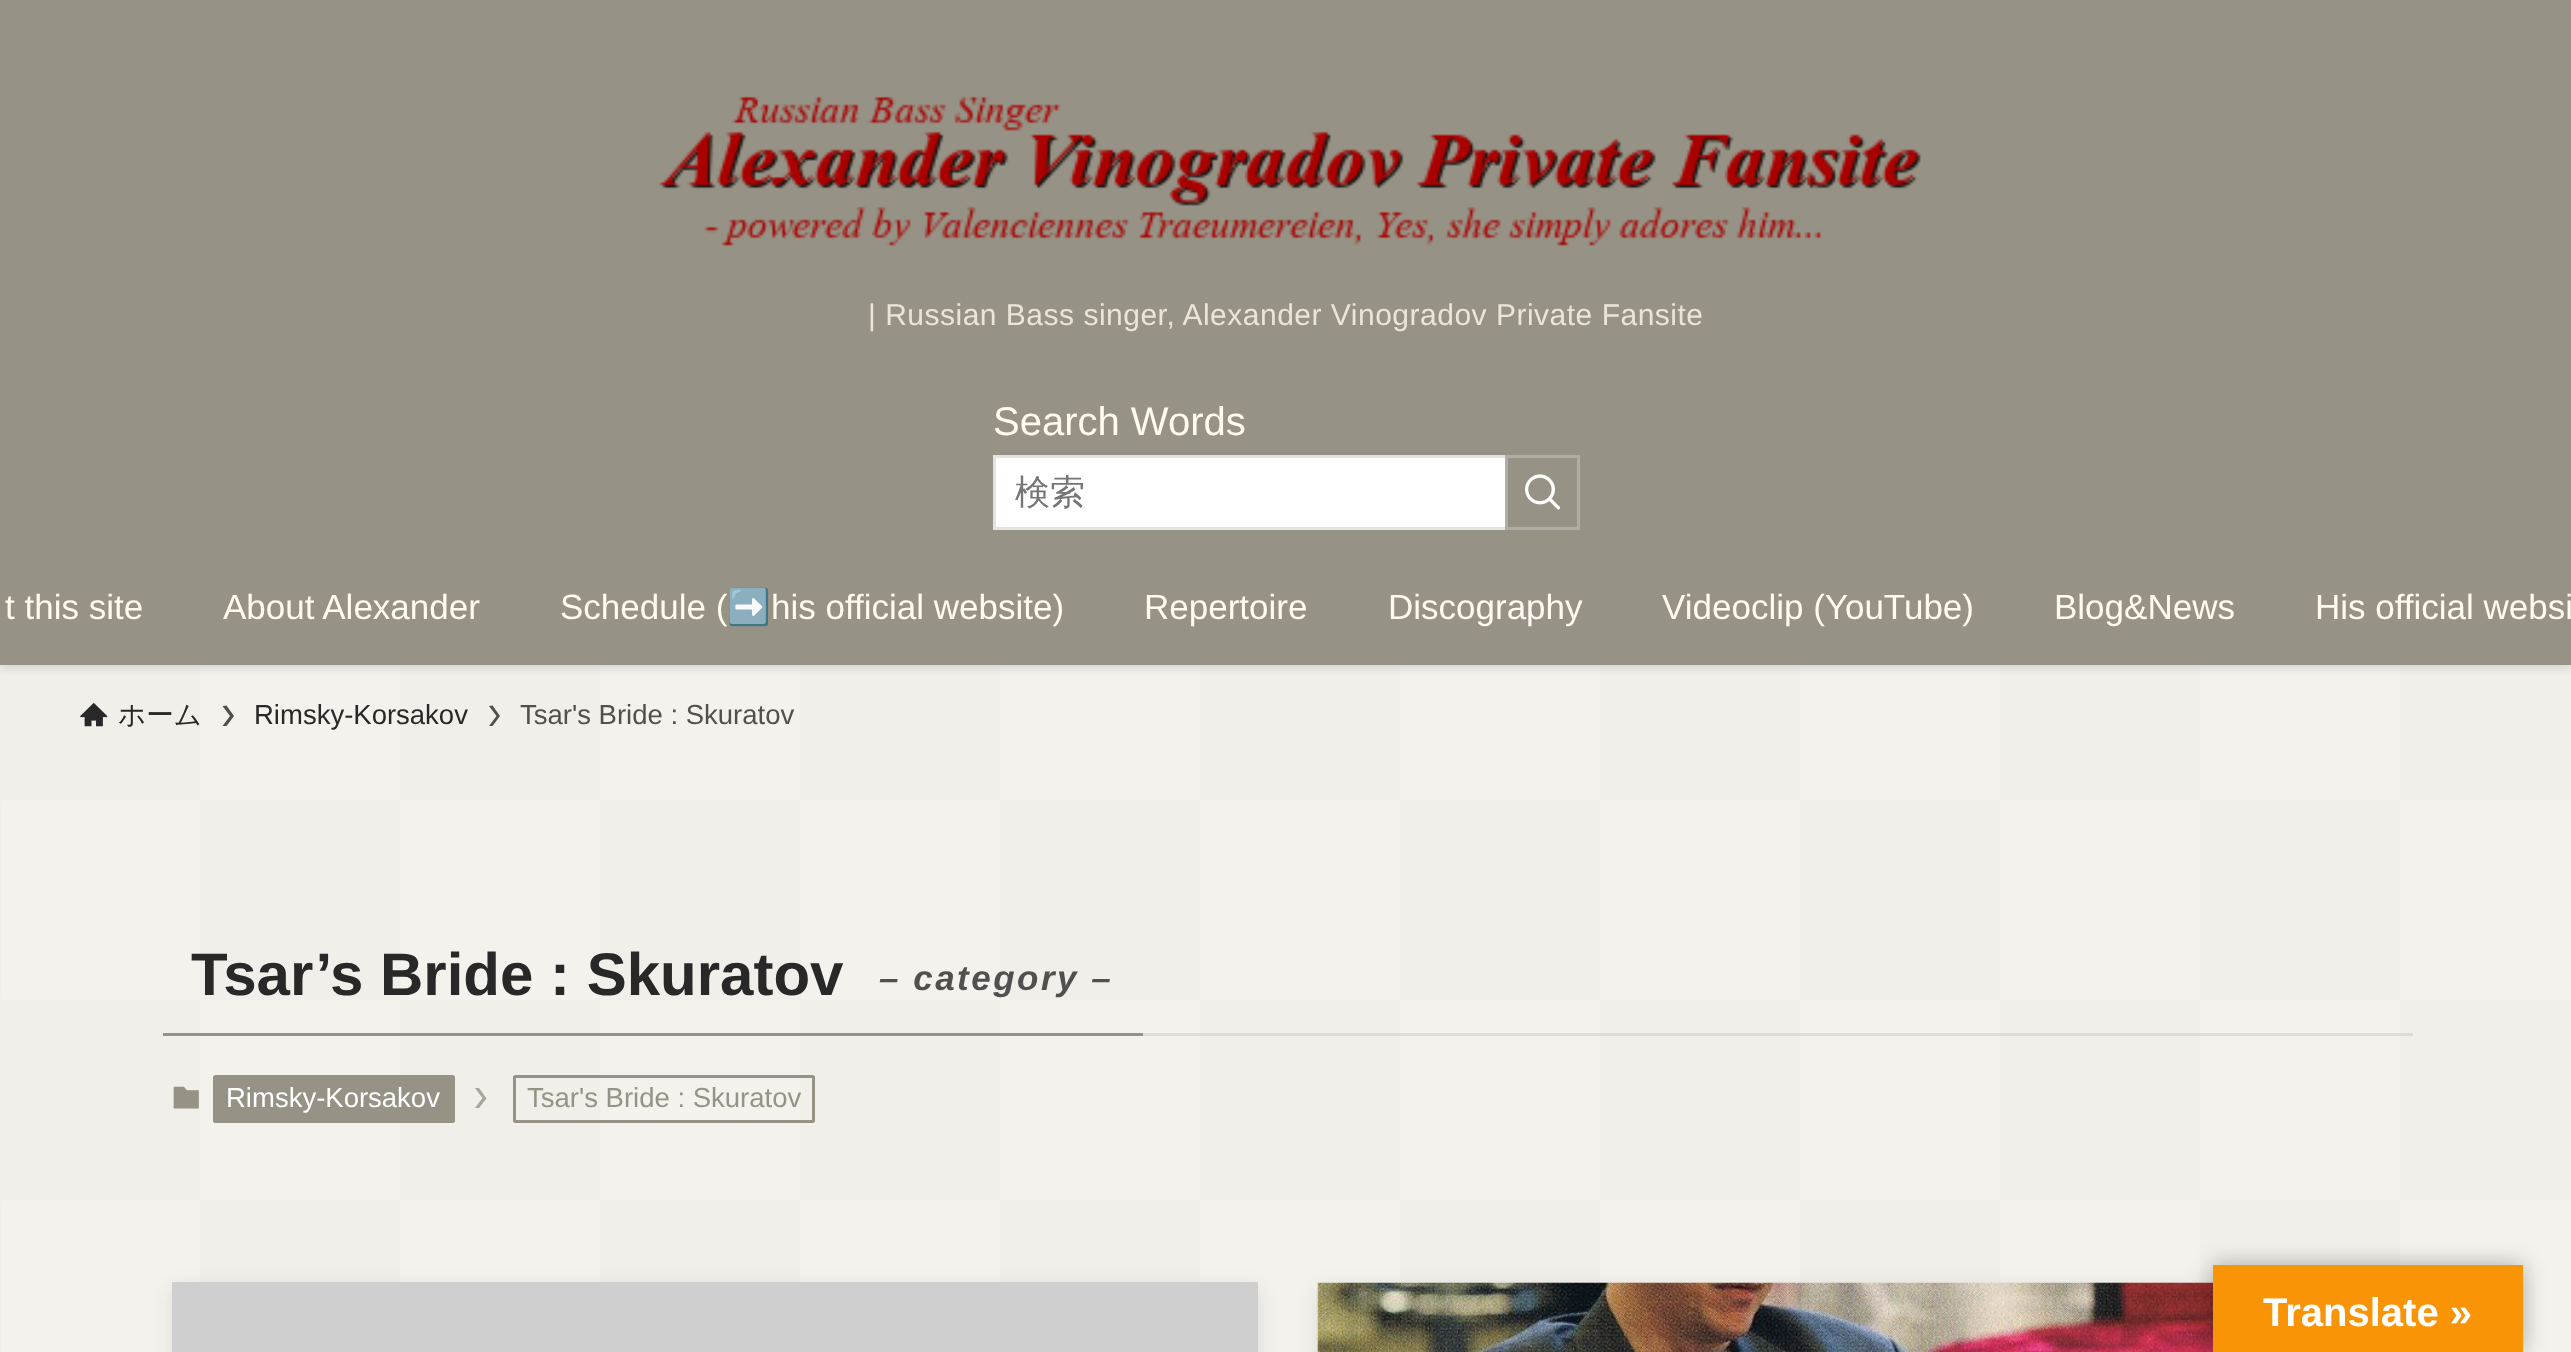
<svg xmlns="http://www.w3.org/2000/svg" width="2571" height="1352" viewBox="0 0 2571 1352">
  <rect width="100%" height="100%" fill="rgb(241,239,233)"/>
  <image x="1" y="665" width="2570" height="687" href="pic3.png"/>
  <rect x="0" y="3" width="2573" height="665" fill="rgba(0,0,0,0.12)" filter="blur(5px)"/>
  <rect x="0" y="0" width="2571" height="665" fill="rgb(150,146,133)"/>
  <image x="659" y="96" width="1262" height="150" href="pic1.png"/>
  <text x="868" y="325" font-family="Liberation Sans" font-size="30" letter-spacing="0.5" fill="rgb(234,228,218)">| Russian Bass singer, Alexander Vinogradov Private Fansite</text>
  <text x="993" y="435" font-family="Liberation Sans" font-size="40" fill="rgb(255,249,239)">Search Words</text>
  <rect x="996" y="458" width="509" height="69" fill="rgb(255,255,255)"/>
  <rect x="994.5" y="456.5" width="584" height="72" fill="none" stroke="rgb(227,227,227)" stroke-width="3"/>
  <text x="1015" y="504" font-family="WenQuanYi Zen Hei" font-size="35" font-weight="500" fill="rgb(117,117,117)">検索</text>
  <rect x="1506.5" y="456.5" width="72" height="72" fill="none" stroke="rgb(175,173,166)" stroke-width="3"/>
  <image x="1525" y="474" width="35" height="36" href="pic2.png"/>
  <g font-family="Liberation Sans" font-size="35" fill="rgb(255,249,239)">
    <text x="5" y="619">t this site</text>
    <text x="223" y="619">About Alexander</text>
    <text x="560" y="619">Schedule (</text>
  </g>
  <text x="727" y="619" font-family="Noto Color Emoji" font-size="35" fill="rgb(255,249,239)">➡️</text>
  <g font-family="Liberation Sans" font-size="35" fill="rgb(255,249,239)">
    <text x="771" y="619">his official website)</text>
    <text x="1144" y="619">Repertoire</text>
    <text x="1388" y="619">Discography</text>
    <text x="1662" y="619">Videoclip (YouTube)</text>
    <text x="2054" y="619">Blog&amp;News</text>
    <text x="2315" y="619">His official websi</text>
  </g>
  <image x="80" y="702" width="28" height="25" href="pic4.png"/>
  <text x="118" y="724" font-family="WenQuanYi Zen Hei" font-size="27.5" font-weight="500" fill="rgb(40,40,40)">ホーム</text>
  <path d="M226.5 705.5L222.5 706L230 716L222.5 726H226.5L234 716Z" fill="rgb(81,80,79)"/>
  <text x="254" y="724" font-family="Liberation Sans" font-size="27.5" fill="rgb(40,40,40)">Rimsky-Korsakov</text>
  <path d="M492.5 705.5L489 706L496.5 716L489 726H492.5L500 716Z" fill="rgb(80,80,79)"/>
  <text x="520" y="724" font-family="Liberation Sans" font-size="27.5" fill="rgb(81,80,79)">Tsar's Bride : Skuratov</text>
  <rect x="1143" y="1033" width="1270" height="3" fill="rgba(199,199,199,0.5)"/>
  <rect x="163" y="1033" width="980" height="3" fill="rgb(150,146,133)"/>
  <text x="191" y="995" font-family="Liberation Sans" font-size="60" font-weight="bold" fill="rgb(40,40,40)">Tsar’s Bride : Skuratov</text>
  <text x="879" y="990" font-family="Liberation Sans" font-size="35" font-weight="bold" font-style="italic" letter-spacing="2.5" fill="rgb(81,80,79)">– category –</text>
  <image x="173" y="1086" width="26" height="23" href="pic5.png"/>
  <rect x="213" y="1075" width="242" height="48" rx="2.5" fill="rgb(150,146,133)"/>
  <text x="226" y="1107" font-family="Liberation Sans" font-size="27.5" fill="rgb(255,255,255)">Rimsky-Korsakov</text>
  <path d="M479 1088H475L482.5 1098L475 1108H479L486.5 1098.5Z" fill="rgb(168,165,153)"/>
  <rect x="514.5" y="1076.5" width="299" height="45" rx="1" fill="none" stroke="rgb(150,146,133)" stroke-width="3"/>
  <text x="527" y="1107" font-family="Liberation Sans" font-size="27.5" fill="rgb(150,146,133)">Tsar's Bride : Skuratov</text>
  <rect x="173" y="1288" width="1085" height="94" fill="rgba(0,0,0,0.1)" filter="blur(10px)"/>
  <rect x="172" y="1282" width="1086" height="70" fill="rgb(207,207,207)"/>
  <rect x="1318" y="1288" width="1085" height="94" fill="rgba(0,0,0,0.1)" filter="blur(10px)"/>
  <image x="1317" y="1282" width="896" height="70" href="pic6.png"/>
  <rect x="2213" y="1265" width="310" height="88" fill="rgba(0,0,0,0.3)" filter="blur(11px)"/>
  <rect x="2213" y="1265" width="310" height="87" fill="rgb(248,148,6)"/>
  <text x="2263" y="1326" font-family="Liberation Sans" font-size="40" font-weight="bold" fill="rgb(255,255,255)">Translate »</text>
</svg>
